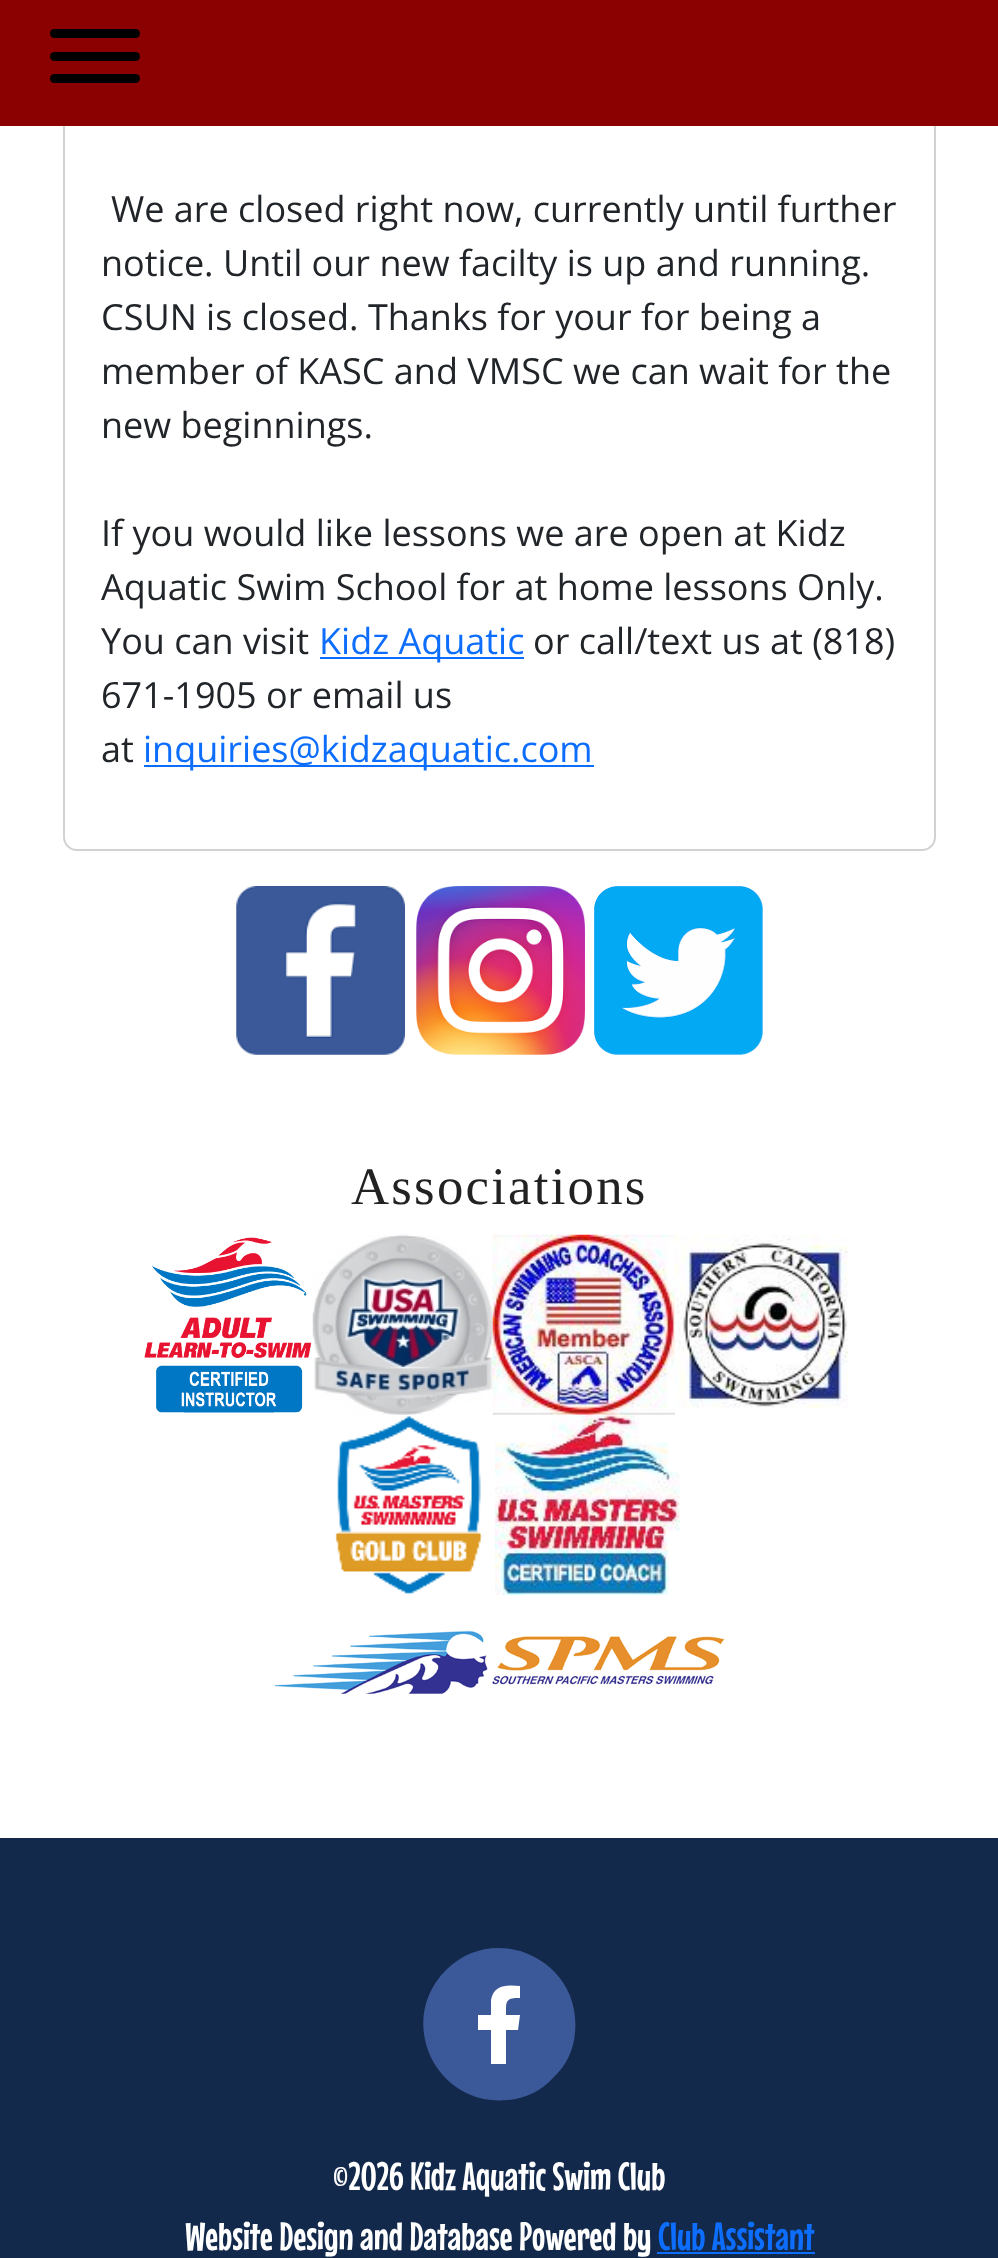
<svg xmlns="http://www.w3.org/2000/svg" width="998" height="2258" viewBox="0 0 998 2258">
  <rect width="100%" height="100%" fill="rgb(19,41,75)"/>
  <rect x="0" y="126" width="998" height="1712" fill="rgb(255,255,255)"/>
  <rect x="64" y="-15" width="871" height="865" rx="13" fill="none" stroke="rgb(210,210,210)" stroke-width="2"/>
  <rect x="0" y="0" width="998" height="126" fill="rgb(139,0,0)"/>
  <rect x="50" y="52" width="90" height="9" rx="4.5" fill="rgb(0,0,0)"/>
  <rect x="50" y="29" width="90" height="9" rx="4.5" fill="rgb(0,0,0)"/>
  <rect x="50" y="74" width="90" height="9" rx="4.5" fill="rgb(0,0,0)"/>
  <g font-family="Open Sans" font-size="36" fill="rgb(33,37,41)">
    <text x="111" y="222">We are closed right now, currently until further</text>
    <text>
      <tspan x="101" y="276">notice. Until our new facilty is up and running.</tspan>
      <tspan x="101" y="330">CSUN is closed. Thanks for your for being a</tspan>
      <tspan x="101" y="384">member of KASC and VMSC we can wait for the</tspan>
      <tspan x="101" y="438">new beginnings.</tspan>
    </text>
    <text>
      <tspan x="101" y="546">If you would like lessons we are open at Kidz</tspan>
      <tspan x="101" y="600">Aquatic Swim School for at home lessons Only.</tspan>
      <tspan x="101" y="654">You can visit</tspan>
    </text>
  </g>
  <rect x="320" y="657" width="204" height="2" fill="rgb(13,110,253)"/>
  <text x="319" y="654" font-family="Open Sans" font-size="36" fill="rgb(13,110,253)">Kidz Aquatic</text>
  <g font-family="Open Sans" font-size="36" fill="rgb(33,37,41)">
    <text x="533" y="654">or call/text us at (818)</text>
    <text>
      <tspan x="101" y="708">671-1905 or email us</tspan>
      <tspan x="101" y="762">at</tspan>
    </text>
  </g>
  <rect x="144" y="765" width="450" height="2" fill="rgb(13,110,253)"/>
  <text x="143" y="762" font-family="Open Sans" font-size="36" fill="rgb(13,110,253)">inquiries@kidzaquatic.com</text>
  <image x="236" y="886" width="169" height="169" href="pic1.png"/>
  <image x="416" y="886" width="169" height="169" href="pic2.png"/>
  <image x="594" y="886" width="169" height="169" href="pic3.png"/>
  <text x="351" y="1204" font-family="Liberation Serif" font-size="52.75" letter-spacing="2.25" fill="rgb(34,34,34)">Associations</text>
  <image x="144" y="1237" width="168" height="176" href="pic4.png"/>
  <image x="312" y="1234" width="181" height="181" href="pic5.png"/>
  <image x="492" y="1234" width="183" height="181" href="pic6.png"/>
  <image x="675" y="1235" width="174" height="174" href="pic7.png"/>
  <image x="335" y="1416" width="148" height="179" href="pic8.png"/>
  <image x="495" y="1414" width="185" height="181" href="pic9.png"/>
  <image x="274" y="1630" width="451" height="64" href="pic10.png"/>
  <path d="M446 1970C496 1920 582 1961 575 2032C574 2050 566 2066 553 2078C541 2091 525 2099 507 2100C436 2107 395 2021 446 1970Z" fill="rgb(59,89,152)"/>
  <path d="M518 2030H506V2064H491V2030H478V2015H491V2000C494 1984 508 1985 520 1986V1998C505 1998 506 2001 506 2015H520Z" fill="rgb(255,255,255)"/>
  <g font-family="Mouse Memoirs" font-size="39.4" fill="rgb(255,255,255)">
    <text x="333" y="2190">©2026 Kidz Aquatic Swim Club</text>
    <text x="185" y="2250">Website Design and Database Powered by</text>
  </g>
  <text x="658" y="2250" font-family="Mouse Memoirs" font-size="39.4" fill="rgb(13,110,253)">Club Assistant</text>
  <rect x="657" y="2252" width="158" height="2" fill="rgb(13,110,253)"/>
</svg>
